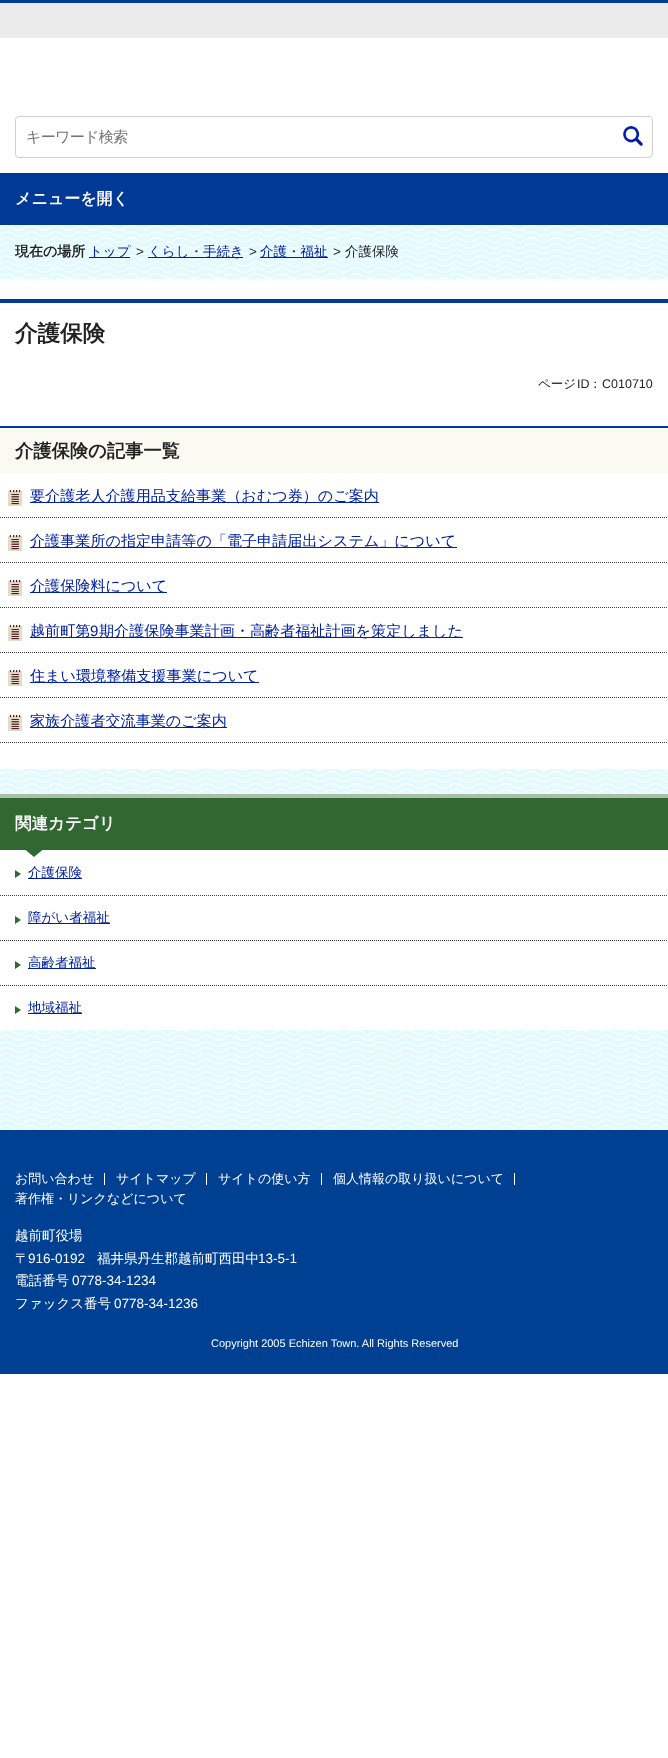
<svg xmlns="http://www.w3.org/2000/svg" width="668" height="1758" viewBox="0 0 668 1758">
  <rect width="100%" height="100%" fill="rgb(255,255,255)"/>
  <image x="0" y="225" width="668" height="905" href="pic1.png"/>
  <rect x="0" y="0" width="668" height="3" fill="rgb(0,61,148)"/>
  <rect x="0" y="3" width="668" height="35" fill="rgb(235,235,235)"/>
  <rect x="15.5" y="116.5" width="637" height="41" rx="3.5" fill="none" stroke="rgb(209,209,209)"/>
  <text x="26" y="142" font-family="WenQuanYi Zen Hei" font-size="15.1" font-weight="500" letter-spacing="-0.75" fill="rgb(117,117,117)">キーワード検索</text>
  <image x="623" y="126" width="20" height="20" href="pic2.png"/>
  <rect x="0" y="173" width="668" height="52" fill="rgb(0,58,150)"/>
  <text x="15" y="204" font-family="WenQuanYi Zen Hei" font-size="16" font-weight="bold" fill="rgb(255,255,255)">メニューを開く</text>
  <text x="15" y="256" font-family="WenQuanYi Zen Hei" font-size="14" font-weight="bold" fill="rgb(34,34,34)">現在の場所</text>
  <rect x="89" y="257" width="41" height="1" fill="rgb(0,32,161)"/>
  <text x="89" y="256" font-family="WenQuanYi Zen Hei" font-size="13.5" font-weight="500" fill="rgb(0,32,161)">トップ</text>
  <text x="136" y="256" font-family="Liberation Sans" font-size="13.5" fill="rgb(34,34,34)">&gt;</text>
  <rect x="148" y="257" width="95" height="1" fill="rgb(0,32,161)"/>
  <text x="148" y="256" font-family="WenQuanYi Zen Hei" font-size="13.5" font-weight="500" fill="rgb(0,32,161)">くらし・手続き</text>
  <text x="249" y="256" font-family="Liberation Sans" font-size="13.5" fill="rgb(34,34,34)">&gt;</text>
  <rect x="260" y="257" width="68" height="1" fill="rgb(0,32,161)"/>
  <text x="260" y="256" font-family="WenQuanYi Zen Hei" font-size="13.5" font-weight="500" fill="rgb(0,32,161)">介護・福祉</text>
  <text x="333" y="256" font-family="Liberation Sans" font-size="13.5" fill="rgb(34,34,34)">&gt;</text>
  <text x="345" y="256" font-family="WenQuanYi Zen Hei" font-size="13.5" font-weight="500" fill="rgb(34,34,34)">介護保険</text>
  <rect x="0" y="279" width="668" height="490" fill="rgb(255,255,255)"/>
  <rect x="0" y="299" width="668" height="4" fill="rgb(0,58,150)"/>
  <text x="15" y="341" font-family="WenQuanYi Zen Hei" font-size="22.5" font-weight="bold" fill="rgb(34,34,34)">介護保険</text>
  <text x="538" y="388" font-family="WenQuanYi Zen Hei" font-size="12.5" font-weight="500" fill="rgb(34,34,34)">ページ</text>
  <text x="577" y="388" font-family="Liberation Sans" font-size="12.5" fill="rgb(34,34,34)">ID</text>
  <text x="589" y="388" font-family="WenQuanYi Zen Hei" font-size="12.5" font-weight="500" fill="rgb(34,34,34)">：</text>
  <text x="602" y="388" font-family="Liberation Sans" font-size="12.5" fill="rgb(34,34,34)">C010710</text>
  <rect x="0" y="428" width="668" height="45" fill="rgb(250,250,243)"/>
  <rect x="0" y="426" width="668" height="2" fill="rgb(0,58,150)"/>
  <text x="15" y="457" font-family="WenQuanYi Zen Hei" font-size="18.25" font-weight="bold" fill="rgb(34,34,34)">介護保険の記事一覧</text>
  <path d="M0 517.5H668" fill="none" stroke="rgb(68,68,68)" stroke-dasharray="1 1"/>
  <image x="8" y="490" width="14" height="16" href="pic3.png"/>
  <rect x="30" y="502" width="349" height="1" fill="rgb(0,32,161)"/>
  <text x="30" y="501" font-family="WenQuanYi Zen Hei" font-size="15.1" font-weight="500" fill="rgb(0,32,161)">要介護老人介護用品支給事業（おむつ券）のご案内</text>
  <path d="M0 562.5H668" fill="none" stroke="rgb(68,68,68)" stroke-dasharray="1 1"/>
  <image x="8" y="535" width="14" height="16" href="pic4.png"/>
  <rect x="30" y="547" width="427" height="1" fill="rgb(0,32,161)"/>
  <text x="30" y="546" font-family="WenQuanYi Zen Hei" font-size="15.1" font-weight="500" fill="rgb(0,32,161)">介護事業所の指定申請等の「電子申請届出システム」について</text>
  <path d="M0 607.5H668" fill="none" stroke="rgb(68,68,68)" stroke-dasharray="1 1"/>
  <image x="8" y="580" width="14" height="16" href="pic5.png"/>
  <rect x="30" y="592" width="137" height="1" fill="rgb(0,32,161)"/>
  <text x="30" y="591" font-family="WenQuanYi Zen Hei" font-size="15.1" font-weight="500" fill="rgb(0,32,161)">介護保険料について</text>
  <path d="M0 652.5H668" fill="none" stroke="rgb(68,68,68)" stroke-dasharray="1 1"/>
  <image x="8" y="625" width="14" height="16" href="pic3.png"/>
  <rect x="30" y="637" width="433" height="1" fill="rgb(0,32,161)"/>
  <text x="30" y="636" font-family="WenQuanYi Zen Hei" font-size="15.1" font-weight="500" fill="rgb(0,32,161)">越前町第</text>
  <text x="90" y="636" font-family="Liberation Sans" font-size="15.1" fill="rgb(0,32,161)">9</text>
  <text x="99" y="636" font-family="WenQuanYi Zen Hei" font-size="15.1" font-weight="500" fill="rgb(0,32,161)">期介護保険事業計画・高齢者福祉計画を策定しました</text>
  <path d="M0 697.5H668" fill="none" stroke="rgb(68,68,68)" stroke-dasharray="1 1"/>
  <image x="8" y="670" width="14" height="16" href="pic3.png"/>
  <rect x="30" y="682" width="229" height="1" fill="rgb(0,32,161)"/>
  <text x="30" y="681" font-family="WenQuanYi Zen Hei" font-size="15.1" font-weight="500" fill="rgb(0,32,161)">住まい環境整備支援事業について</text>
  <path d="M0 742.5H668" fill="none" stroke="rgb(68,68,68)" stroke-dasharray="1 1"/>
  <image x="8" y="715" width="14" height="16" href="pic3.png"/>
  <rect x="30" y="727" width="197" height="1" fill="rgb(0,32,161)"/>
  <text x="30" y="726" font-family="WenQuanYi Zen Hei" font-size="15.1" font-weight="500" fill="rgb(0,32,161)">家族介護者交流事業のご案内</text>
  <rect x="0" y="850" width="668" height="180" fill="rgb(255,255,255)"/>
  <rect x="0" y="798" width="668" height="52" fill="rgb(49,103,48)"/>
  <rect x="0" y="794" width="668" height="4" fill="rgb(169,191,168)"/>
  <text x="15" y="829" font-family="WenQuanYi Zen Hei" font-size="16.5" font-weight="bold" fill="rgb(255,255,255)">関連カテゴリ</text>
  <path d="M22 847H46L34 857Z" fill="rgb(49,103,48)"/>
  <path d="M0 895.5H668" fill="none" stroke="rgb(68,68,68)" stroke-dasharray="1 1"/>
  <path d="M15 878V870L21 874Z" fill="rgb(49,103,48)"/>
  <rect x="28" y="878" width="54" height="1" fill="rgb(0,32,161)"/>
  <text x="28" y="877" font-family="WenQuanYi Zen Hei" font-size="13.5" font-weight="500" fill="rgb(0,32,161)">介護保険</text>
  <path d="M0 940.5H668" fill="none" stroke="rgb(68,68,68)" stroke-dasharray="1 1"/>
  <path d="M15 924V916L21 920Z" fill="rgb(49,103,48)"/>
  <rect x="28" y="923" width="82" height="1" fill="rgb(0,32,161)"/>
  <text x="28" y="922" font-family="WenQuanYi Zen Hei" font-size="13.5" font-weight="500" fill="rgb(0,32,161)">障がい者福祉</text>
  <path d="M0 985.5H668" fill="none" stroke="rgb(68,68,68)" stroke-dasharray="1 1"/>
  <path d="M15 969V961L21 965Z" fill="rgb(49,103,48)"/>
  <rect x="28" y="968" width="68" height="1" fill="rgb(0,32,161)"/>
  <text x="28" y="967" font-family="WenQuanYi Zen Hei" font-size="13.5" font-weight="500" fill="rgb(0,32,161)">高齢者福祉</text>
  <path d="M15 1014V1006L21 1010Z" fill="rgb(49,103,48)"/>
  <rect x="28" y="1013" width="54" height="1" fill="rgb(0,32,161)"/>
  <text x="28" y="1012" font-family="WenQuanYi Zen Hei" font-size="13.5" font-weight="500" fill="rgb(0,32,161)">地域福祉</text>
  <rect x="0" y="1130" width="668" height="244" fill="rgb(0,64,146)"/>
  <text x="15" y="1183" font-family="WenQuanYi Zen Hei" font-size="13" font-weight="500" fill="rgb(255,255,255)">お問い合わせ</text>
  <rect x="104" y="1173" width="1" height="12" fill="rgb(255,255,255)"/>
  <text x="116" y="1183" font-family="WenQuanYi Zen Hei" font-size="13" font-weight="500" fill="rgb(255,255,255)">サイトマップ</text>
  <rect x="206" y="1173" width="1" height="12" fill="rgb(255,255,255)"/>
  <text x="218" y="1183" font-family="WenQuanYi Zen Hei" font-size="13" font-weight="500" fill="rgb(255,255,255)">サイトの使い方</text>
  <rect x="321" y="1173" width="1" height="12" fill="rgb(255,255,255)"/>
  <text x="333" y="1183" font-family="WenQuanYi Zen Hei" font-size="13" font-weight="500" fill="rgb(255,255,255)">個人情報の取り扱いについて</text>
  <rect x="514" y="1173" width="1" height="12" fill="rgb(255,255,255)"/>
  <text x="15" y="1203" font-family="WenQuanYi Zen Hei" font-size="13" font-weight="500" fill="rgb(255,255,255)">著作権・リンクなどについて</text>
  <g font-family="WenQuanYi Zen Hei" font-size="13.5" font-weight="500" fill="rgb(255,255,255)">
    <text>
      <tspan x="15" y="1240">越前町役場</tspan>
      <tspan x="15" y="1263">〒</tspan>
    </text>
  </g>
  <text x="28" y="1263" font-family="Liberation Sans" font-size="13.5" fill="rgb(255,255,255)">916-0192</text>
  <text x="97" y="1263" font-family="WenQuanYi Zen Hei" font-size="13.5" font-weight="500" fill="rgb(255,255,255)">福井県丹生郡越前町西田中</text>
  <text x="258" y="1263" font-family="Liberation Sans" font-size="13.5" fill="rgb(255,255,255)">13-5-1</text>
  <text x="15" y="1285" font-family="WenQuanYi Zen Hei" font-size="13.5" font-weight="500" fill="rgb(255,255,255)">電話番号</text>
  <text x="72" y="1285" font-family="Liberation Sans" font-size="13.5" fill="rgb(255,255,255)">0778-34-1234</text>
  <text x="15" y="1308" font-family="WenQuanYi Zen Hei" font-size="13.5" font-weight="500" fill="rgb(255,255,255)">ファックス番号</text>
  <text x="114" y="1308" font-family="Liberation Sans" font-size="13.5" fill="rgb(255,255,255)">0778-34-1236</text>
  <text x="211" y="1347" font-family="Liberation Sans" font-size="11" fill="rgb(255,255,255)">Copyright 2005 Echizen Town. All Rights Reserved</text>
</svg>
